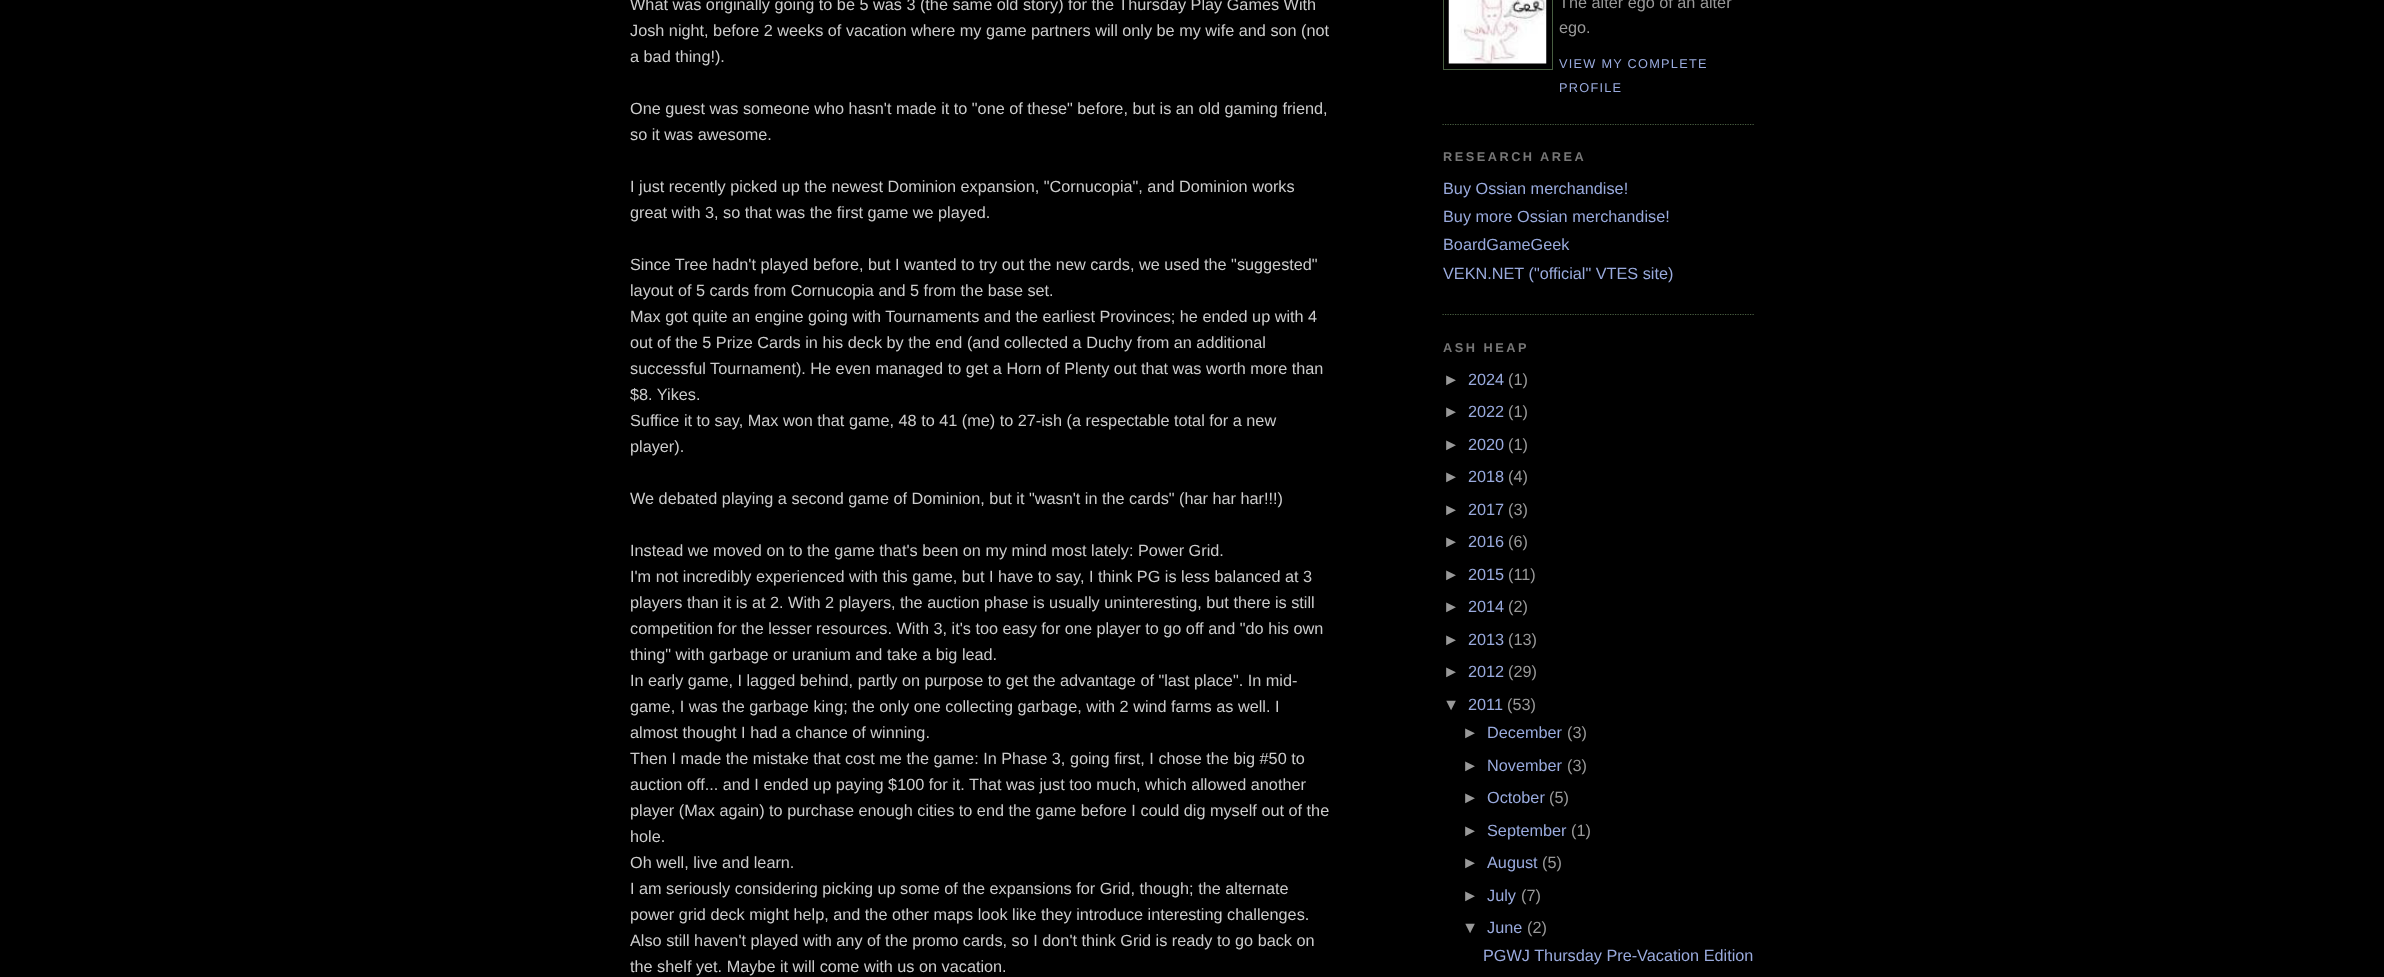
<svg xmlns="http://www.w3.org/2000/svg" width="2384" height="977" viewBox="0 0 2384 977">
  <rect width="100%" height="100%" fill="rgb(0,0,0)"/>
  <g font-family="Liberation Sans" font-size="16.25" fill="rgb(204,204,204)">
    <text>
      <tspan x="630" y="10">What was originally going to be 5 was 3 (the same old story) for the Thursday Play Games With</tspan>
      <tspan x="630" y="36">Josh night, before 2 weeks of vacation where my game partners will only be my wife and son (not</tspan>
      <tspan x="630" y="62">a bad thing!).</tspan>
    </text>
    <text>
      <tspan x="630" y="114">One guest was someone who hasn't made it to "one of these" before, but is an old gaming friend,</tspan>
      <tspan x="630" y="140">so it was awesome.</tspan>
    </text>
    <text>
      <tspan x="630" y="192">I just recently picked up the newest Dominion expansion, "Cornucopia", and Dominion works</tspan>
      <tspan x="630" y="218">great with 3, so that was the first game we played.</tspan>
    </text>
    <text>
      <tspan x="630" y="270">Since Tree hadn't played before, but I wanted to try out the new cards, we used the "suggested"</tspan>
      <tspan x="630" y="296">layout of 5 cards from Cornucopia and 5 from the base set.</tspan>
      <tspan x="630" y="322">Max got quite an engine going with Tournaments and the earliest Provinces; he ended up with 4</tspan>
      <tspan x="630" y="348">out of the 5 Prize Cards in his deck by the end (and collected a Duchy from an additional</tspan>
      <tspan x="630" y="374">successful Tournament). He even managed to get a Horn of Plenty out that was worth more than</tspan>
      <tspan x="630" y="400">$8. Yikes.</tspan>
      <tspan x="630" y="426">Suffice it to say, Max won that game, 48 to 41 (me) to 27-ish (a respectable total for a new</tspan>
      <tspan x="630" y="452">player).</tspan>
    </text>
    <text x="630" y="504">We debated playing a second game of Dominion, but it "wasn't in the cards" (har har har!!!)</text>
    <text>
      <tspan x="630" y="556">Instead we moved on to the game that's been on my mind most lately: Power Grid.</tspan>
      <tspan x="630" y="582">I'm not incredibly experienced with this game, but I have to say, I think PG is less balanced at 3</tspan>
      <tspan x="630" y="608">players than it is at 2. With 2 players, the auction phase is usually uninteresting, but there is still</tspan>
      <tspan x="630" y="634">competition for the lesser resources. With 3, it's too easy for one player to go off and "do his own</tspan>
      <tspan x="630" y="660">thing" with garbage or uranium and take a big lead.</tspan>
      <tspan x="630" y="686">In early game, I lagged behind, partly on purpose to get the advantage of "last place". In mid-</tspan>
      <tspan x="630" y="712">game, I was the garbage king; the only one collecting garbage, with 2 wind farms as well. I</tspan>
      <tspan x="630" y="738">almost thought I had a chance of winning.</tspan>
      <tspan x="630" y="764">Then I made the mistake that cost me the game: In Phase 3, going first, I chose the big #50 to</tspan>
      <tspan x="630" y="790">auction off... and I ended up paying $100 for it.</tspan>
    </text>
    <text x="969" y="790">That was just too much, which allowed another</text>
    <text>
      <tspan x="630" y="816">player (Max again) to purchase enough cities to end the game before I could dig myself out of the</tspan>
      <tspan x="630" y="842">hole.</tspan>
      <tspan x="630" y="868">Oh well, live and learn.</tspan>
      <tspan x="630" y="894">I am seriously considering picking up some of the expansions for Grid, though; the alternate</tspan>
      <tspan x="630" y="920">power grid deck might help, and the other maps look like they introduce interesting challenges.</tspan>
      <tspan x="630" y="946">Also still haven't played with any of the promo cards, so I don't think Grid is ready to go back on</tspan>
      <tspan x="630" y="972">the shelf yet. Maybe it will come with us on vacation.</tspan>
    </text>
  </g>
  <path d="M1442.5 124.5H1755" fill="none" stroke="rgb(72,94,65)" stroke-width="1.2" stroke-dasharray="1.25 1.25"/>
  <rect x="1443.5" y="-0.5" width="109" height="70" fill="none" stroke="rgb(72,94,65)"/>
  <image x="1448" y="0" width="99" height="64" href="pic1.png"/>
  <g font-family="Liberation Sans" font-size="16.25" fill="rgb(153,153,153)">
    <text>
      <tspan x="1559" y="8">The alter ego of an alter</tspan>
      <tspan x="1559" y="33">ego.</tspan>
    </text>
  </g>
  <g font-family="Liberation Sans" font-size="12.75" letter-spacing="1.25" fill="rgb(153,170,221)">
    <text>
      <tspan x="1559" y="68">VIEW MY COMPLETE</tspan>
      <tspan x="1559" y="92">PROFILE</tspan>
    </text>
  </g>
  <path d="M1442.5 314.5H1755" fill="none" stroke="rgb(72,94,65)" stroke-width="1.2" stroke-dasharray="1.25 1.25"/>
  <text x="1443" y="161" font-family="Liberation Sans" font-size="12.75" font-weight="bold" letter-spacing="2.5" fill="rgb(119,119,119)">RESEARCH AREA</text>
  <g font-family="Liberation Sans" font-size="16.25" fill="rgb(153,170,221)">
    <text>
      <tspan x="1443" y="194">Buy Ossian merchandise!</tspan>
      <tspan x="1443" y="222">Buy more Ossian merchandise!</tspan>
      <tspan x="1443" y="250">BoardGameGeek</tspan>
      <tspan x="1443" y="279">VEKN.NET ("official" VTES site)</tspan>
    </text>
  </g>
  <text x="1443" y="352" font-family="Liberation Sans" font-size="12.75" font-weight="bold" letter-spacing="2.5" fill="rgb(119,119,119)">ASH HEAP</text>
  <text x="1443" y="385" font-family="Liberation Sans" font-size="16.25" fill="rgb(153,153,153)">►</text>
  <text x="1468" y="385" font-family="Liberation Sans" font-size="16.25" fill="rgb(153,170,221)">2024</text>
  <g font-family="Liberation Sans" font-size="16.25" fill="rgb(153,153,153)">
    <text x="1508" y="385">(1)</text>
    <text x="1443" y="417">►</text>
  </g>
  <text x="1468" y="417" font-family="Liberation Sans" font-size="16.25" fill="rgb(153,170,221)">2022</text>
  <g font-family="Liberation Sans" font-size="16.25" fill="rgb(153,153,153)">
    <text x="1508" y="417">(1)</text>
    <text x="1443" y="450">►</text>
  </g>
  <text x="1468" y="450" font-family="Liberation Sans" font-size="16.25" fill="rgb(153,170,221)">2020</text>
  <g font-family="Liberation Sans" font-size="16.25" fill="rgb(153,153,153)">
    <text x="1508" y="450">(1)</text>
    <text x="1443" y="482">►</text>
  </g>
  <text x="1468" y="482" font-family="Liberation Sans" font-size="16.25" fill="rgb(153,170,221)">2018</text>
  <g font-family="Liberation Sans" font-size="16.25" fill="rgb(153,153,153)">
    <text x="1508" y="482">(4)</text>
    <text x="1443" y="515">►</text>
  </g>
  <text x="1468" y="515" font-family="Liberation Sans" font-size="16.25" fill="rgb(153,170,221)">2017</text>
  <g font-family="Liberation Sans" font-size="16.25" fill="rgb(153,153,153)">
    <text x="1508" y="515">(3)</text>
    <text x="1443" y="547">►</text>
  </g>
  <text x="1468" y="547" font-family="Liberation Sans" font-size="16.25" fill="rgb(153,170,221)">2016</text>
  <g font-family="Liberation Sans" font-size="16.25" fill="rgb(153,153,153)">
    <text x="1508" y="547">(6)</text>
    <text x="1443" y="580">►</text>
  </g>
  <text x="1468" y="580" font-family="Liberation Sans" font-size="16.25" fill="rgb(153,170,221)">2015</text>
  <g font-family="Liberation Sans" font-size="16.25" fill="rgb(153,153,153)">
    <text x="1508" y="580">(11)</text>
    <text x="1443" y="612">►</text>
  </g>
  <text x="1468" y="612" font-family="Liberation Sans" font-size="16.25" fill="rgb(153,170,221)">2014</text>
  <g font-family="Liberation Sans" font-size="16.25" fill="rgb(153,153,153)">
    <text x="1508" y="612">(2)</text>
    <text x="1443" y="645">►</text>
  </g>
  <text x="1468" y="645" font-family="Liberation Sans" font-size="16.25" fill="rgb(153,170,221)">2013</text>
  <g font-family="Liberation Sans" font-size="16.25" fill="rgb(153,153,153)">
    <text x="1508" y="645">(13)</text>
    <text x="1443" y="677">►</text>
  </g>
  <text x="1468" y="677" font-family="Liberation Sans" font-size="16.25" fill="rgb(153,170,221)">2012</text>
  <g font-family="Liberation Sans" font-size="16.25" fill="rgb(153,153,153)">
    <text x="1508" y="677">(29)</text>
    <text x="1443" y="710">▼</text>
  </g>
  <text x="1468" y="710" font-family="Liberation Sans" font-size="16.25" fill="rgb(153,170,221)">2011</text>
  <g font-family="Liberation Sans" font-size="16.25" fill="rgb(153,153,153)">
    <text x="1507" y="710">(53)</text>
    <text x="1462" y="738">►</text>
  </g>
  <text x="1487" y="738" font-family="Liberation Sans" font-size="16.25" fill="rgb(153,170,221)">December</text>
  <g font-family="Liberation Sans" font-size="16.25" fill="rgb(153,153,153)">
    <text x="1567" y="738">(3)</text>
    <text x="1462" y="771">►</text>
  </g>
  <text x="1487" y="771" font-family="Liberation Sans" font-size="16.25" fill="rgb(153,170,221)">November</text>
  <g font-family="Liberation Sans" font-size="16.25" fill="rgb(153,153,153)">
    <text x="1567" y="771">(3)</text>
    <text x="1462" y="803">►</text>
  </g>
  <text x="1487" y="803" font-family="Liberation Sans" font-size="16.25" fill="rgb(153,170,221)">October</text>
  <g font-family="Liberation Sans" font-size="16.25" fill="rgb(153,153,153)">
    <text x="1549" y="803">(5)</text>
    <text x="1462" y="836">►</text>
  </g>
  <text x="1487" y="836" font-family="Liberation Sans" font-size="16.25" fill="rgb(153,170,221)">September</text>
  <g font-family="Liberation Sans" font-size="16.25" fill="rgb(153,153,153)">
    <text x="1571" y="836">(1)</text>
    <text x="1462" y="868">►</text>
  </g>
  <text x="1487" y="868" font-family="Liberation Sans" font-size="16.25" fill="rgb(153,170,221)">August</text>
  <g font-family="Liberation Sans" font-size="16.25" fill="rgb(153,153,153)">
    <text x="1542" y="868">(5)</text>
    <text x="1462" y="901">►</text>
  </g>
  <text x="1487" y="901" font-family="Liberation Sans" font-size="16.25" fill="rgb(153,170,221)">July</text>
  <g font-family="Liberation Sans" font-size="16.25" fill="rgb(153,153,153)">
    <text x="1521" y="901">(7)</text>
    <text x="1462" y="933">▼</text>
  </g>
  <text x="1487" y="933" font-family="Liberation Sans" font-size="16.25" fill="rgb(153,170,221)">June</text>
  <text x="1527" y="933" font-family="Liberation Sans" font-size="16.25" fill="rgb(153,153,153)">(2)</text>
  <text x="1483" y="961" font-family="Liberation Sans" font-size="16.25" fill="rgb(153,170,221)">PGWJ Thursday Pre-Vacation Edition</text>
</svg>
